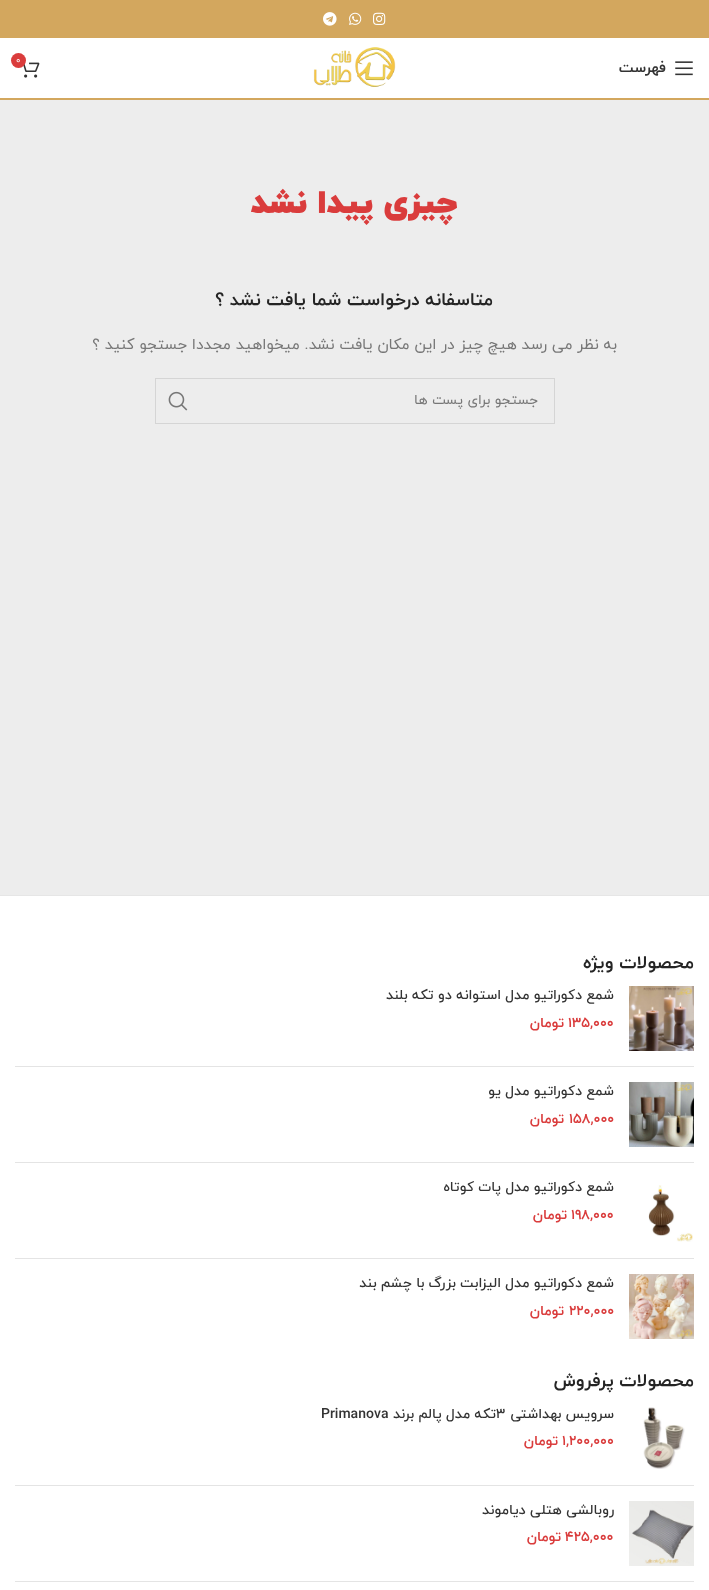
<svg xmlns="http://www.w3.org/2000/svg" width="709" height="1590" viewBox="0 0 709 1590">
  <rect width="100%" height="100%" fill="rgb(255,255,255)"/>
  <rect x="0" y="0" width="709" height="38" fill="rgb(211,167,94)"/>
  <image x="373" y="12" width="13" height="13" href="pic1.png"/>
  <image x="349" y="12" width="13" height="13" href="pic2.png"/>
  <image x="323" y="12" width="14" height="14" href="pic3.png"/>
  <rect x="0" y="98" width="709" height="2" fill="rgb(211,167,94)"/>
  <image x="675" y="61" width="18" height="15" href="pic4.png"/>
  <text x="666" y="72" font-family="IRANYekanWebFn" font-size="15" font-weight="bold" direction="rtl" fill="rgb(51,51,51)">فهرست</text>
  <image x="313" y="47" width="83" height="40" href="pic5.png"/>
  <image x="23" y="62" width="17" height="16" href="pic6.png"/>
  <circle cx="18.5" cy="60.5" r="7.5" fill="rgb(218,60,60)"/>
  <text x="16" y="63" font-family="IRANYekanWebFn" font-size="9" fill="rgb(255,255,255)">0</text>
  <rect x="0" y="100" width="709" height="795" fill="rgb(237,237,237)"/>
  <text x="458" y="212" font-family="IRANYekanWebFn" font-size="32" font-weight="900" direction="rtl" fill="rgb(218,60,60)">چیزی پیدا نشد</text>
  <text x="493" y="305" font-family="IRANYekanWebFn" font-size="18" font-weight="bold" direction="rtl" fill="rgb(36,36,36)">متاسفانه درخواست شما یافت نشد ؟</text>
  <text x="617" y="349" font-family="IRANYekanWebFn" font-size="15.4" direction="rtl" fill="rgb(119,119,119)">به نظر می رسد هیچ چیز در این مکان یافت نشد. میخواهید مجددا جستجو کنید ؟</text>
  <rect x="155.5" y="378.5" width="399" height="45" fill="none" stroke="rgb(213,213,213)"/>
  <text x="538" y="404" font-family="IRANYekanWebFn" font-size="14" direction="rtl" fill="rgb(119,119,119)">جستجو برای پست ها</text>
  <image x="168" y="391" width="20" height="20" href="pic7.png"/>
  <rect x="0" y="895" width="709" height="1" fill="rgb(230,230,230)"/>
  <text x="694" y="968" font-family="IRANYekanWebFn" font-size="18" font-weight="bold" direction="rtl" fill="rgb(36,36,36)">محصولات ویژه</text>
  <rect x="15" y="1066" width="679" height="1" fill="rgb(228,228,228)"/>
  <image x="629" y="986" width="65" height="65" href="pic8.png"/>
  <text x="614" y="999" font-family="IRANYekanWebFn" font-size="14" font-weight="500" direction="rtl" fill="rgb(51,51,51)">شمع دکوراتیو مدل استوانه دو تکه بلند</text>
  <text x="568" y="1027" font-family="IRANYekanWebFn" font-size="14" font-weight="bold" fill="rgb(218,60,60)">۱۳۵,۰۰۰</text>
  <text x="564" y="1027" font-family="IRANYekanWebFn" font-size="14" font-weight="bold" direction="rtl" fill="rgb(218,60,60)">تومان</text>
  <rect x="15" y="1162" width="679" height="1" fill="rgb(228,228,228)"/>
  <image x="629" y="1082" width="65" height="65" href="pic9.png"/>
  <text x="614" y="1095" font-family="IRANYekanWebFn" font-size="14" font-weight="500" direction="rtl" fill="rgb(51,51,51)">شمع دکوراتیو مدل یو</text>
  <text x="569" y="1123" font-family="IRANYekanWebFn" font-size="14" font-weight="bold" fill="rgb(218,60,60)">۱۵۸,۰۰۰</text>
  <text x="564" y="1123" font-family="IRANYekanWebFn" font-size="14" font-weight="bold" direction="rtl" fill="rgb(218,60,60)">تومان</text>
  <rect x="15" y="1258" width="679" height="1" fill="rgb(228,228,228)"/>
  <image x="648" y="1185" width="45" height="57" href="pic10.png"/>
  <text x="614" y="1191" font-family="IRANYekanWebFn" font-size="14" font-weight="500" direction="rtl" fill="rgb(51,51,51)">شمع دکوراتیو مدل پات کوتاه</text>
  <text x="571" y="1219" font-family="IRANYekanWebFn" font-size="14" font-weight="bold" fill="rgb(218,60,60)">۱۹۸,۰۰۰</text>
  <text x="567" y="1219" font-family="IRANYekanWebFn" font-size="14" font-weight="bold" direction="rtl" fill="rgb(218,60,60)">تومان</text>
  <image x="629" y="1274" width="65" height="65" href="pic11.png"/>
  <text x="614" y="1287" font-family="IRANYekanWebFn" font-size="14" font-weight="500" direction="rtl" fill="rgb(51,51,51)">شمع دکوراتیو مدل الیزابت بزرگ با چشم بند</text>
  <text x="569" y="1315" font-family="IRANYekanWebFn" font-size="14" font-weight="bold" fill="rgb(218,60,60)">۲۲۰,۰۰۰</text>
  <text x="564" y="1315" font-family="IRANYekanWebFn" font-size="14" font-weight="bold" direction="rtl" fill="rgb(218,60,60)">تومان</text>
  <text x="694" y="1386" font-family="IRANYekanWebFn" font-size="18" font-weight="bold" direction="rtl" fill="rgb(36,36,36)">محصولات پرفروش</text>
  <rect x="15" y="1485" width="679" height="1" fill="rgb(228,228,228)"/>
  <image x="643" y="1407" width="42" height="62" href="pic12.png"/>
  <g font-family="IRANYekanWebFn" font-size="14" font-weight="500" direction="rtl" fill="rgb(51,51,51)">
    <text x="614" y="1418">سرویس بهداشتی</text>
    <text x="496" y="1418">تکه مدل پالم برند</text>
  </g>
  <g font-family="IRANYekanWebFn" font-size="14" font-weight="500" fill="rgb(51,51,51)">
    <text x="496" y="1418">۳</text>
    <text x="321" y="1418">Primanova</text>
  </g>
  <text x="562" y="1445" font-family="IRANYekanWebFn" font-size="14" font-weight="bold" fill="rgb(218,60,60)">۱,۲۰۰,۰۰۰</text>
  <text x="558" y="1445" font-family="IRANYekanWebFn" font-size="14" font-weight="bold" direction="rtl" fill="rgb(218,60,60)">تومان</text>
  <rect x="15" y="1581" width="679" height="1" fill="rgb(228,228,228)"/>
  <image x="629" y="1501" width="65" height="65" href="pic13.png"/>
  <text x="614" y="1514" font-family="IRANYekanWebFn" font-size="14" font-weight="500" direction="rtl" fill="rgb(51,51,51)">روبالشی هتلی دیاموند</text>
  <text x="565" y="1541" font-family="IRANYekanWebFn" font-size="14" font-weight="bold" fill="rgb(218,60,60)">۴۲۵,۰۰۰</text>
  <text x="561" y="1541" font-family="IRANYekanWebFn" font-size="14" font-weight="bold" direction="rtl" fill="rgb(218,60,60)">تومان</text>
</svg>
